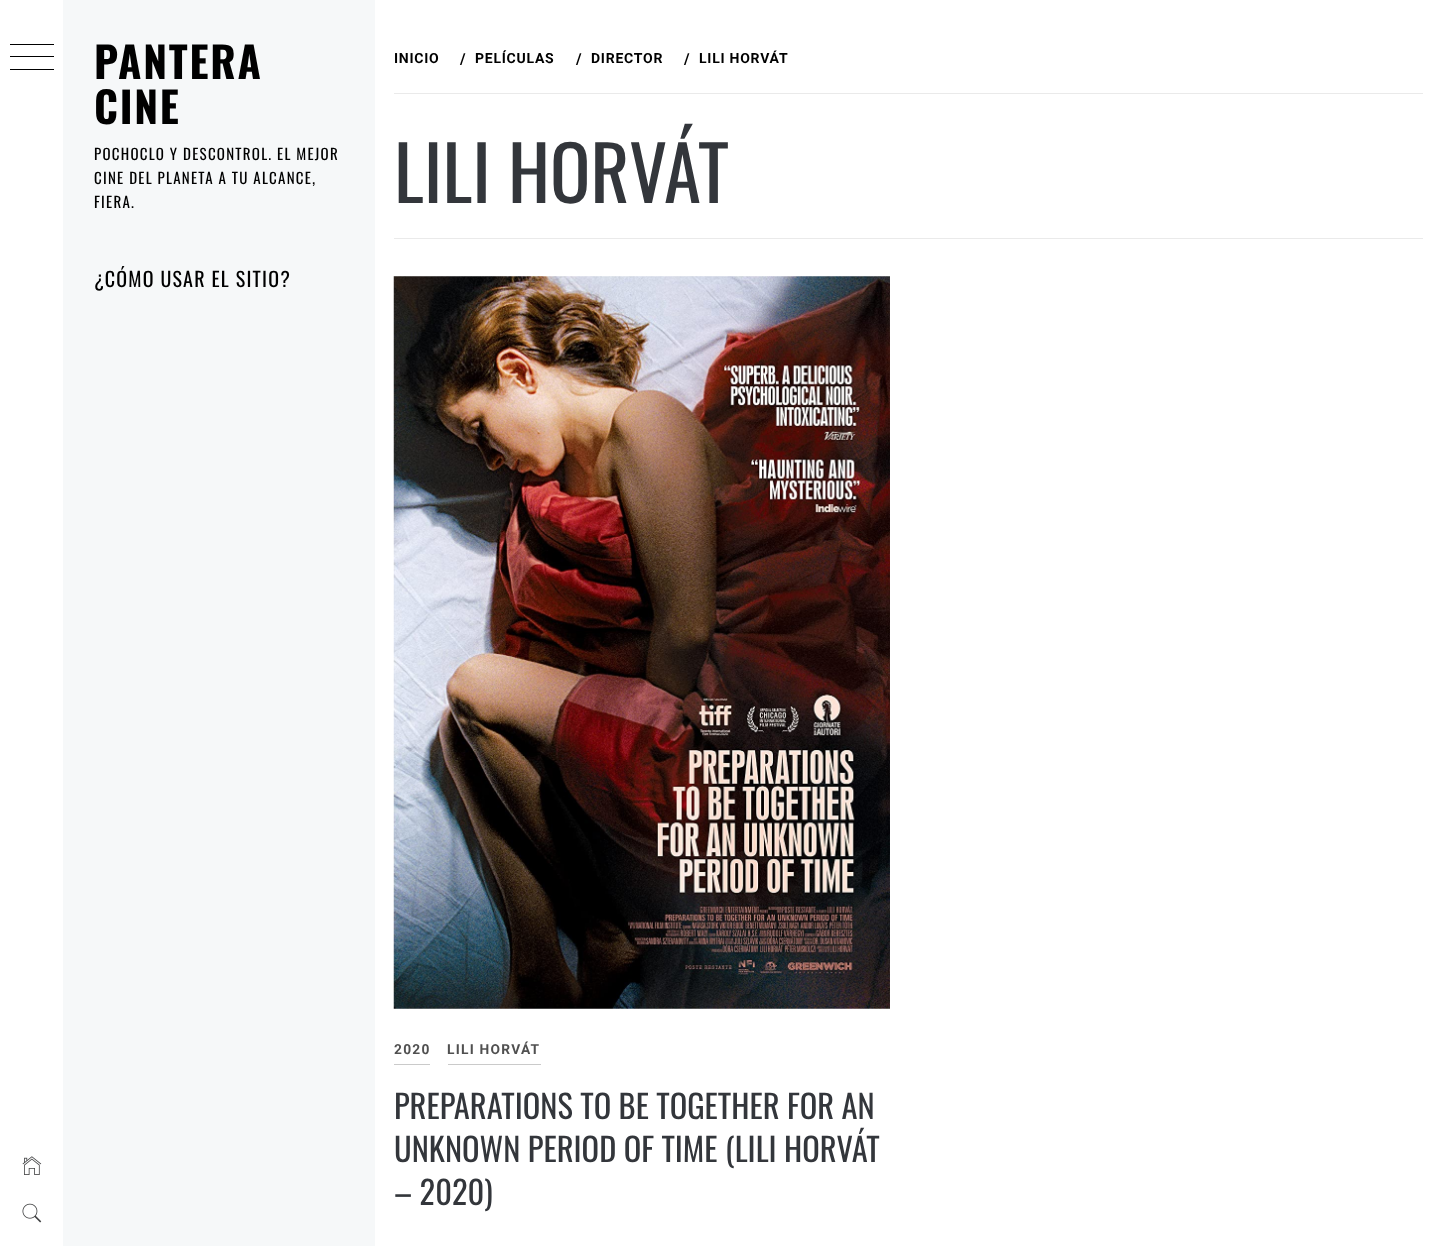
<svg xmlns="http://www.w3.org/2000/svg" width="1441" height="1246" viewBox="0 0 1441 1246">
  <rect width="100%" height="100%" fill="rgb(255,255,255)"/>
  <rect x="10" y="44" width="44" height="1" fill="rgb(0,0,0)"/>
  <rect x="10" y="56" width="44" height="1" fill="rgb(0,0,0)"/>
  <rect x="10" y="69" width="44" height="1" fill="rgb(0,0,0)"/>
  <image x="22" y="1156" width="20" height="19" href="pic1.png"/>
  <image x="22" y="1203" width="20" height="20" href="pic2.png"/>
  <rect x="63" y="0" width="312" height="1246" fill="rgb(246,248,249)"/>
  <g font-family="Oswald" font-size="42.5" font-weight="bold" letter-spacing="1.75" fill="rgb(0,0,0)">
    <text>
      <tspan x="94" y="79">PANTERA</tspan>
      <tspan x="94" y="124">CINE</tspan>
    </text>
  </g>
  <g font-family="Oswald" font-size="15" letter-spacing="1.25" fill="rgb(0,0,0)">
    <text>
      <tspan x="94" y="160">POCHOCLO Y DESCONTROL. EL MEJOR</tspan>
      <tspan x="94" y="184">CINE DEL PLANETA A TU ALCANCE,</tspan>
      <tspan x="94" y="208">FIERA.</tspan>
    </text>
  </g>
  <text x="94" y="287" font-family="Oswald" font-size="20" letter-spacing="1.2" fill="rgb(0,0,0)">¿CÓMO USAR EL SITIO?</text>
  <rect x="394" y="238" width="1029" height="1" fill="rgb(234,234,234)"/>
  <rect x="394" y="93" width="1029" height="1" fill="rgb(234,234,234)"/>
  <text x="394" y="63" font-family="Roboto" font-size="14" font-weight="bold" letter-spacing="0.75" fill="rgb(0,0,0)">INICIO</text>
  <text x="460" y="64" font-family="Roboto" font-size="15" font-weight="bold" letter-spacing="0.75" fill="rgb(0,0,0)">/</text>
  <text x="475" y="63" font-family="Roboto" font-size="14" font-weight="bold" letter-spacing="0.75" fill="rgb(0,0,0)">PELÍCULAS</text>
  <text x="576" y="64" font-family="Roboto" font-size="15" font-weight="bold" letter-spacing="0.75" fill="rgb(0,0,0)">/</text>
  <text x="591" y="63" font-family="Roboto" font-size="14" font-weight="bold" letter-spacing="0.75" fill="rgb(0,0,0)">DIRECTOR</text>
  <text x="684" y="64" font-family="Roboto" font-size="15" font-weight="bold" letter-spacing="0.75" fill="rgb(0,0,0)">/</text>
  <text x="699" y="63" font-family="Roboto" font-size="14" font-weight="bold" letter-spacing="0.75" fill="rgb(0,0,0)">LILI HORVÁT</text>
  <text x="394" y="203" font-family="Oswald" font-size="75" fill="rgb(51,54,59)">LILI HORVÁT</text>
  <image x="393" y="276" width="497" height="733" href="pic3.png"/>
  <rect x="394" y="1064" width="36" height="1" fill="rgb(202,202,202)"/>
  <text x="394" y="1054" font-family="Roboto" font-size="13.75" font-weight="bold" letter-spacing="1.25" fill="rgb(80,80,80)">2020</text>
  <rect x="448" y="1064" width="93" height="1" fill="rgb(202,202,202)"/>
  <text x="447" y="1054" font-family="Roboto" font-size="13.75" font-weight="bold" letter-spacing="1.25" fill="rgb(80,80,80)">LILI HORVÁT</text>
  <g font-family="Oswald" font-size="32.5" fill="rgb(51,54,59)">
    <text>
      <tspan x="394" y="1119">PREPARATIONS TO BE TOGETHER FOR AN</tspan>
      <tspan x="394" y="1162">UNKNOWN PERIOD OF TIME (LILI HORVÁT</tspan>
      <tspan x="394" y="1205">– 2020)</tspan>
    </text>
  </g>
</svg>
